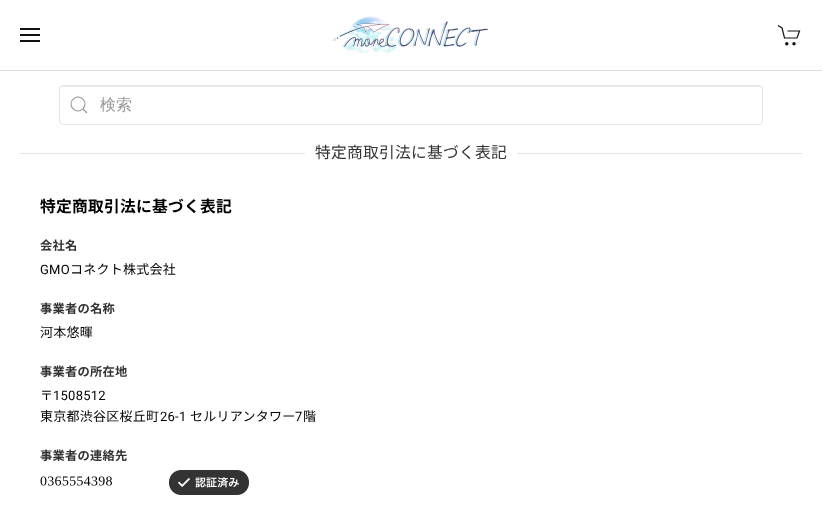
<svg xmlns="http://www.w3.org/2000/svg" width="822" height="516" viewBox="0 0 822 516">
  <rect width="100%" height="100%" fill="rgb(255,255,255)"/>
  <rect x="0" y="70" width="822" height="1" fill="rgb(221,221,221)"/>
  <rect x="20" y="34" width="20" height="2" fill="rgb(17,17,17)"/>
  <rect x="20" y="28" width="20" height="2" fill="rgb(17,17,17)"/>
  <rect x="20" y="40" width="20" height="2" fill="rgb(17,17,17)"/>
  <image x="332" y="16" width="156" height="38" href="pic1.png"/>
  <path d="M778 25.5L782 28L784.5 38H797L799.5 31H787.5" fill="none" stroke="rgb(17,17,17)" stroke-width="1.2"/>
  <circle cx="786.8" cy="43.8" r="1.7" fill="rgb(17,17,17)"/>
  <circle cx="794" cy="43.8" r="1.7" fill="rgb(17,17,17)"/>
  <path d="M63 87H759C761 87 762 88 762 90C762 88 761 86 759 86H63C61 86 60 88 60 90C60 88 61 87 63 87Z" fill="rgb(236,236,236)"/>
  <rect x="59.5" y="85.5" width="703" height="39" rx="3.5" fill="none" stroke="rgb(229,229,229)"/>
  <circle cx="78" cy="104" r="7" fill="none" stroke="rgb(153,153,153)" stroke-width="1.1"/>
  <path d="M83 109L87 113Z" fill="none" stroke="rgb(153,153,153)" stroke-width="1.1"/>
  <text x="100" y="110" font-family="WenQuanYi Zen Hei" font-size="16" font-weight="500" fill="rgb(153,153,153)">検索</text>
  <rect x="20" y="153" width="285" height="1" fill="rgb(229,229,229)"/>
  <text x="315" y="158" font-family="Noto Sans JP" font-size="15.75" letter-spacing="0.25" fill="rgb(51,51,51)">特定商取引法に基づく表記</text>
  <rect x="517" y="153" width="285" height="1" fill="rgb(229,229,229)"/>
  <text x="40" y="212" font-family="Noto Sans JP" font-size="15.75" font-weight="bold" letter-spacing="0.25" fill="rgb(0,0,0)">特定商取引法に基づく表記</text>
  <text x="40" y="250" font-family="Noto Sans JP" font-size="12.25" font-weight="bold" letter-spacing="0.25" fill="rgb(51,51,51)">会社名</text>
  <text x="40" y="274" font-family="Roboto" font-size="13" letter-spacing="0.25" fill="rgb(0,0,0)">GMO</text>
  <text x="70" y="274" font-family="Noto Sans JP" font-size="13" letter-spacing="0.25" fill="rgb(0,0,0)">コネクト株式会社</text>
  <text x="40" y="313" font-family="Noto Sans JP" font-size="12.25" font-weight="bold" letter-spacing="0.25" fill="rgb(51,51,51)">事業者の名称</text>
  <text x="40" y="337" font-family="Noto Sans JP" font-size="13" letter-spacing="0.25" fill="rgb(0,0,0)">河本悠暉</text>
  <text x="40" y="376" font-family="Noto Sans JP" font-size="12.25" font-weight="bold" letter-spacing="0.25" fill="rgb(51,51,51)">事業者の所在地</text>
  <text x="40" y="400" font-family="Noto Sans JP" font-size="13" letter-spacing="0.25" fill="rgb(0,0,0)">〒</text>
  <text x="53" y="400" font-family="Roboto" font-size="13" letter-spacing="0.25" fill="rgb(0,0,0)">1508512</text>
  <text x="40" y="421" font-family="Noto Sans JP" font-size="13" letter-spacing="0.25" fill="rgb(0,0,0)">東京都渋谷区桜丘町</text>
  <text x="160" y="421" font-family="Roboto" font-size="13" letter-spacing="0.25" fill="rgb(0,0,0)">26-1</text>
  <text x="190" y="421" font-family="Noto Sans JP" font-size="13" letter-spacing="0.25" fill="rgb(0,0,0)">セルリアンタワー</text>
  <text x="295" y="421" font-family="Roboto" font-size="13" letter-spacing="0.25" fill="rgb(0,0,0)">7</text>
  <text x="303" y="421" font-family="Noto Sans JP" font-size="13" letter-spacing="0.25" fill="rgb(0,0,0)">階</text>
  <text x="40" y="460" font-family="Noto Sans JP" font-size="12.25" font-weight="bold" letter-spacing="0.25" fill="rgb(51,51,51)">事業者の連絡先</text>
  <image x="40" y="476" width="72" height="10" href="pic2.png"/>
  <image x="169" y="470" width="80" height="25" href="pic3.png"/>
</svg>
